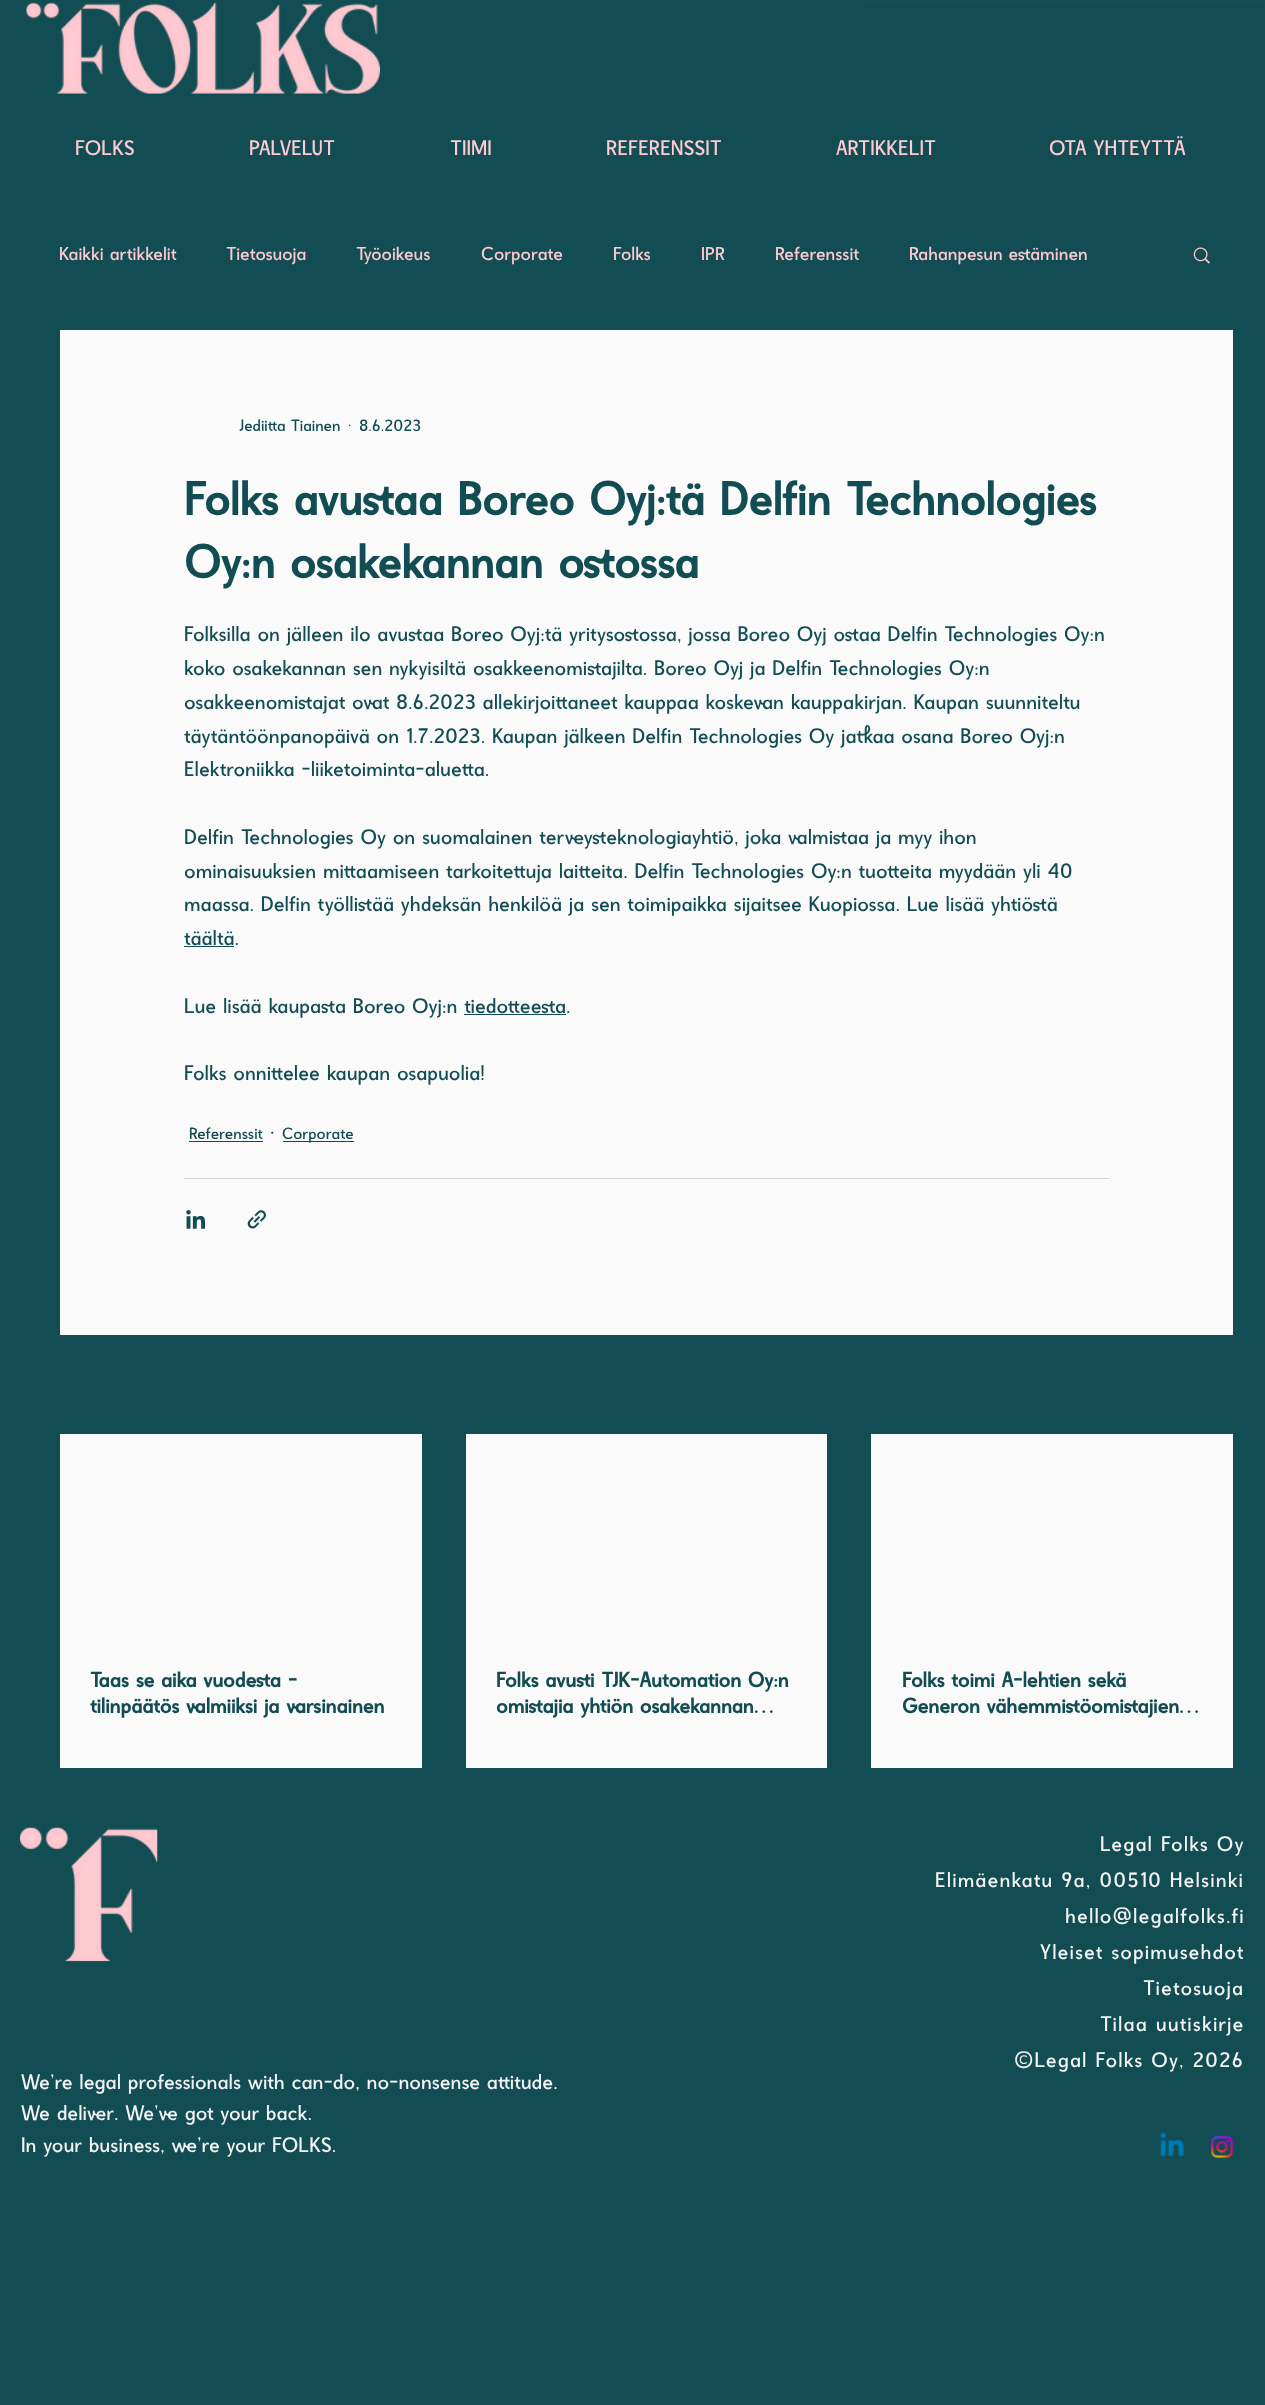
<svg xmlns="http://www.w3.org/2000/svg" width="1265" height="2405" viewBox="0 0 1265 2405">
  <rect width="100%" height="100%" fill="rgb(18,77,84)"/>
  <rect x="861" y="1" width="403" height="1" fill="rgb(66,66,66)"/>
  <image x="26" y="2" width="354" height="92" href="pic1.png"/>
  <g font-family="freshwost" font-size="22.5" fill="rgb(255,202,209)">
    <text x="75" y="155">FOLKS</text>
    <text x="249" y="155">PALVELUT</text>
    <text x="450" y="155">TIIMI</text>
    <text x="606" y="155">REFERENSSIT</text>
    <text x="836" y="155">ARTIKKELIT</text>
    <text x="1049" y="155">OTA YHTEYTTÄ</text>
  </g>
  <g font-family="freshwost" font-size="20" fill="rgb(255,202,209)">
    <text x="59" y="260">Kaikki artikkelit</text>
    <text x="226" y="260">Tietosuoja</text>
    <text x="356" y="260">Työoikeus</text>
    <text x="481" y="260">Corporate</text>
    <text x="613" y="260">Folks</text>
    <text x="701" y="260">IPR</text>
    <text x="775" y="260">Referenssit</text>
    <text x="909" y="260">Rahanpesun estäminen</text>
  </g>
  <image x="1193" y="247" width="17" height="17" href="pic2.png"/>
  <rect x="60" y="330" width="1173" height="1005" fill="rgb(250,250,250)"/>
  <g font-family="freshwost" font-size="17.5" fill="rgb(18,77,84)">
    <text x="239" y="431">Jediitta Tiainen</text>
    <text x="348" y="431">·</text>
    <text x="359" y="431">8.6.2023</text>
  </g>
  <g font-family="freshwost" font-size="50" font-weight="bold" fill="rgb(18,77,84)">
    <text>
      <tspan x="184" y="515">Folks avustaa Boreo Oyj:tä Delfin Technologies</tspan>
      <tspan x="184" y="578">Oy:n osakekannan ostossa</tspan>
    </text>
  </g>
  <g font-family="freshwost" font-size="22.5" fill="rgb(18,77,84)">
    <text>
      <tspan x="184" y="641">Folksilla on jälleen ilo avustaa Boreo Oyj:tä yritysostossa, jossa Boreo Oyj ostaa Delfin Technologies Oy:n</tspan>
      <tspan x="184" y="675">koko osakekannan sen nykyisiltä osakkeenomistajilta. Boreo Oyj ja Delfin Technologies Oy:n</tspan>
      <tspan x="184" y="709">osakkeenomistajat ovat 8.6.2023 allekirjoittaneet kauppaa koskevan kauppakirjan. Kaupan suunniteltu</tspan>
      <tspan x="184" y="743">täytäntöönpanopäivä on 1.7.2023. Kaupan jälkeen Delfin Technologies Oy jatkaa osana Boreo Oyj:n</tspan>
      <tspan x="184" y="776">Elektroniikka -liiketoiminta-aluetta.</tspan>
    </text>
    <text>
      <tspan x="184" y="844">Delfin Technologies Oy on suomalainen terveysteknologiayhtiö, joka valmistaa ja myy ihon</tspan>
      <tspan x="184" y="878">ominaisuuksien mittaamiseen tarkoitettuja laitteita. Delfin Technologies Oy:n tuotteita myydään yli 40</tspan>
      <tspan x="184" y="911">maassa. Delfin työllistää yhdeksän henkilöä ja sen toimipaikka sijaitsee Kuopiossa. Lue lisää yhtiöstä</tspan>
      <tspan x="184" y="945">täältä.</tspan>
    </text>
  </g>
  <rect x="184" y="946" width="50" height="1" fill="rgb(18,77,84)"/>
  <text x="184" y="1013" font-family="freshwost" font-size="22.5" fill="rgb(18,77,84)">Lue lisää kaupasta Boreo Oyj:n tiedotteesta.</text>
  <rect x="464" y="1014" width="102" height="1" fill="rgb(18,77,84)"/>
  <text x="184" y="1080" font-family="freshwost" font-size="22.5" fill="rgb(18,77,84)">Folks onnittelee kaupan osapuolia!</text>
  <text x="189" y="1139" font-family="freshwost" font-size="17.5" fill="rgb(18,77,84)">Referenssit</text>
  <rect x="189" y="1141" width="74" height="1" fill="rgb(18,77,84)"/>
  <text x="270" y="1140" font-family="freshwost" font-size="22.5" fill="rgb(18,77,84)">·</text>
  <rect x="283" y="1141" width="71" height="1" fill="rgb(18,77,84)"/>
  <text x="282" y="1139" font-family="freshwost" font-size="17.5" fill="rgb(18,77,84)">Corporate</text>
  <rect x="184" y="1178" width="925" height="1" fill="rgb(204,215,217)"/>
  <image x="186" y="1210" width="19" height="19" href="pic3.png"/>
  <image x="247" y="1210" width="19" height="19" href="pic4.png"/>
  <rect x="60" y="1434" width="362" height="334" fill="rgb(250,250,250)"/>
  <g font-family="freshwost" font-size="22.5" font-weight="bold" fill="rgb(18,77,84)">
    <text>
      <tspan x="90" y="1687">Taas se aika vuodesta –</tspan>
      <tspan x="90" y="1713">tilinpäätös valmiiksi ja varsinainen</tspan>
    </text>
  </g>
  <rect x="466" y="1434" width="361" height="334" fill="rgb(250,250,250)"/>
  <g font-family="freshwost" font-size="22.5" font-weight="bold" fill="rgb(18,77,84)">
    <text>
      <tspan x="496" y="1687">Folks avusti TJK-Automation Oy:n</tspan>
      <tspan x="496" y="1713">omistajia yhtiön osakekannan…</tspan>
    </text>
  </g>
  <rect x="871" y="1434" width="362" height="334" fill="rgb(250,250,250)"/>
  <g font-family="freshwost" font-size="22.5" font-weight="bold" fill="rgb(18,77,84)">
    <text>
      <tspan x="902" y="1687">Folks toimi A-lehtien sekä</tspan>
      <tspan x="902" y="1713">Generon vähemmistöomistajien…</tspan>
    </text>
  </g>
  <image x="20" y="1827" width="138" height="135" href="pic5.png"/>
  <g font-family="freshwost" font-size="22.5" letter-spacing="1.1" fill="rgb(244,244,244)">
    <text x="1100" y="1851">Legal Folks Oy</text>
    <text x="935" y="1887">Elimäenkatu 9a, 00510 Helsinki</text>
    <text x="1065" y="1923">hello@legalfolks.fi</text>
    <text x="1040" y="1959">Yleiset sopimusehdot</text>
    <text x="1143" y="1995">Tietosuoja</text>
    <text x="1100" y="2031">Tilaa uutiskirje</text>
    <text x="1014" y="2067">©Legal Folks Oy, 2026</text>
  </g>
  <g font-family="freshwost" font-size="22.5" fill="rgb(244,244,244)">
    <text>
      <tspan x="21" y="2089">We’re legal professionals with can-do, no-nonsense attitude.</tspan>
      <tspan x="21" y="2120">We deliver. We’ve got your back.</tspan>
      <tspan x="21" y="2152">In your business, we’re your FOLKS.</tspan>
    </text>
  </g>
  <image x="1160" y="2132" width="24" height="25" href="pic6.png"/>
  <image x="1210" y="2135" width="24" height="24" href="pic7.png"/>
</svg>
